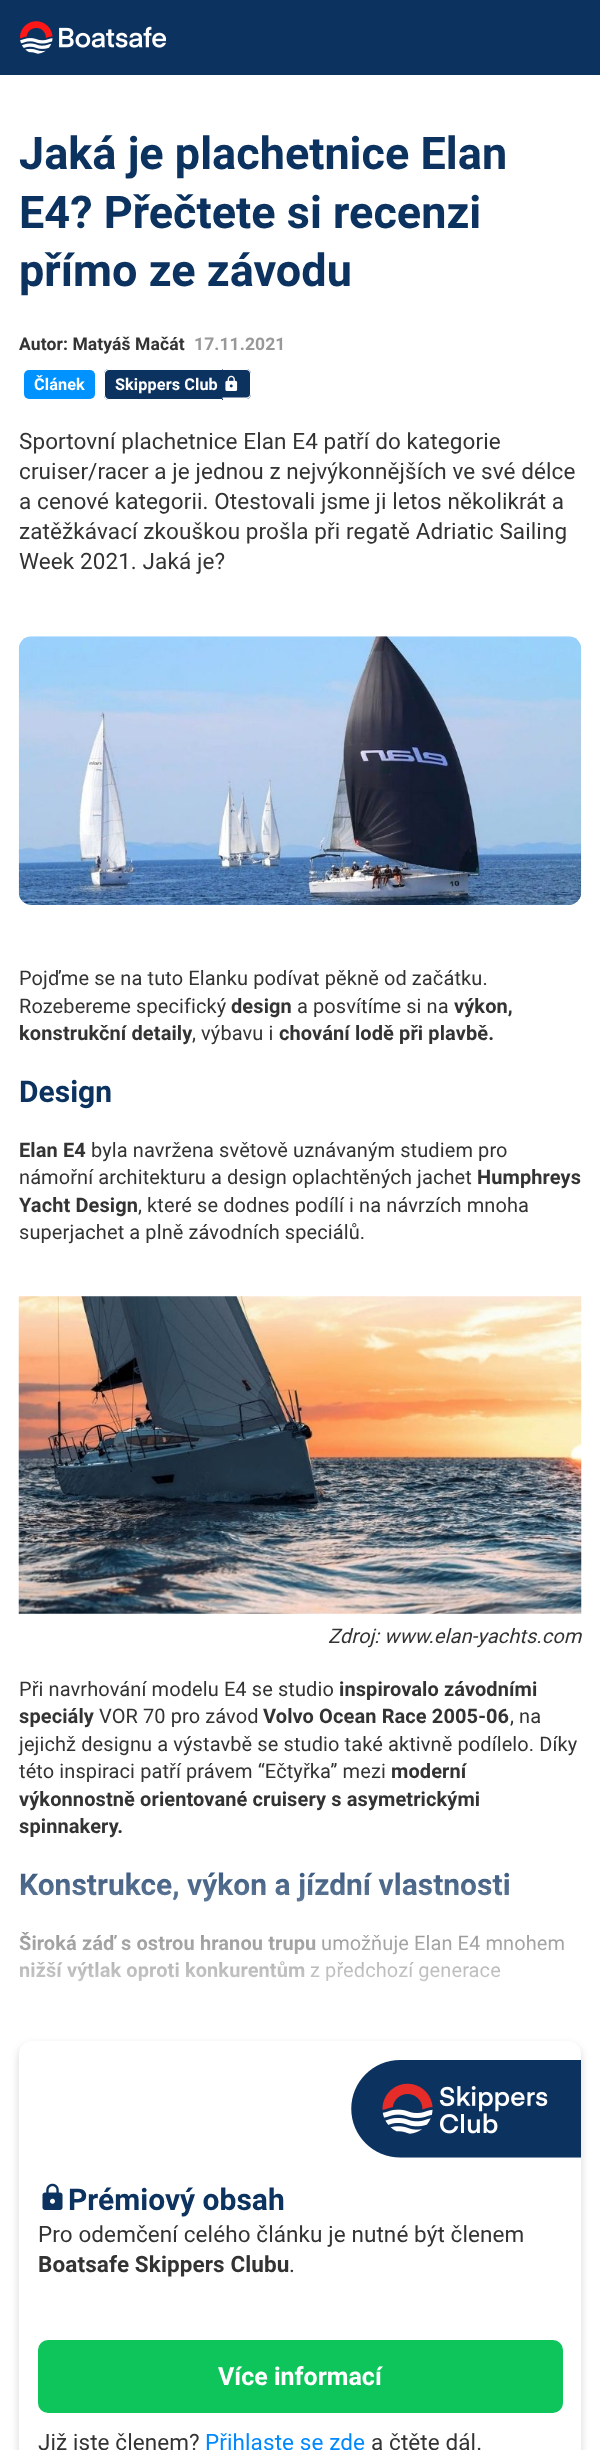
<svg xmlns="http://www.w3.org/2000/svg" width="600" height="2450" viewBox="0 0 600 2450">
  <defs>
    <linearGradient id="g1" gradientUnits="userSpaceOnUse" x1="300" y1="1829" x2="300" y2="2038"><stop offset="0" stop-color="rgb(255,255,255)" stop-opacity="0"/><stop offset="1" stop-color="rgb(255,255,255)"/></linearGradient>
  </defs>
  <rect width="100%" height="100%" fill="rgb(255,255,255)"/>
  <rect x="0" y="0" width="600" height="75" fill="rgb(12,50,96)"/>
  <image x="20" y="21" width="146" height="33" href="pic1.png"/>
  <g font-family="Roboto" font-size="45" font-weight="bold" fill="rgb(12,50,96)">
    <text>
      <tspan x="19" y="169">Jaká je plachetnice Elan</tspan>
      <tspan x="19" y="228">E4? Přečtete si recenzi</tspan>
      <tspan x="19" y="286">přímo ze závodu</tspan>
    </text>
  </g>
  <text x="19" y="350" font-family="Roboto" font-size="17.5" font-weight="bold" letter-spacing="0.1" fill="rgb(51,51,51)">Autor: Matyáš Mačát</text>
  <text x="194" y="350" font-family="Roboto" font-size="17.5" font-weight="bold" letter-spacing="0.1" fill="rgb(153,153,153)">17.11.2021</text>
  <rect x="24" y="370" width="71" height="29" rx="5" fill="rgb(0,147,255)"/>
  <text x="34" y="390" font-family="Roboto" font-size="16.25" font-weight="bold" letter-spacing="0.1" fill="rgb(255,255,255)">Článek</text>
  <path d="M109 369H223V400H109C106 400 104 398 104 395V374C104 371 106 369 109 369Z" fill="rgb(12,50,96)"/>
  <path d="M109 369H222V400H109C106 400 104 398 104 395V374C104 371 106 369 109 369ZM109 370H222V399H109C107 399 105 397 105 395V374C105 372 107 370 109 370Z" fill="rgb(255,255,255)" fill-rule="evenodd"/>
  <path d="M223 369H246C249 369 251 371 251 374V394C251 397 249 399 246 399H223Z" fill="rgb(12,50,96)"/>
  <path d="M222.5 369H246C249 369 251 371 251 374V394C251 396.5 249 399 246 399H222.5ZM222.5 370H246C248.5 370 250 371.5 250 374V394C250 396 248.5 397.5 246 397.5H222.5Z" fill="rgb(255,255,255)" fill-rule="evenodd"/>
  <text x="115" y="390" font-family="Roboto" font-size="16.25" font-weight="bold" letter-spacing="0.1" fill="rgb(255,255,255)">Skippers Club</text>
  <image x="225" y="375" width="13" height="16" href="pic2.png"/>
  <g font-family="Roboto" font-size="22.5" letter-spacing="0.1" fill="rgb(51,51,51)">
    <text>
      <tspan x="19" y="449">Sportovní plachetnice Elan E4 patří do kategorie</tspan>
      <tspan x="19" y="479">cruiser/racer a je jednou z nejvýkonnějších ve své délce</tspan>
      <tspan x="19" y="509">a cenové kategorii. Otestovali jsme ji letos několikrát a</tspan>
      <tspan x="19" y="539">zatěžkávací zkouškou prošla při regatě Adriatic Sailing</tspan>
      <tspan x="19" y="569">Week 2021. Jaká je?</tspan>
    </text>
  </g>
  <image x="18" y="636" width="564" height="269" href="pic3.png"/>
  <g font-family="Roboto" font-size="20" letter-spacing="0.1" fill="rgb(51,51,51)">
    <text>
      <tspan x="19" y="985">Pojďme se na tuto Elanku podívat pěkně od začátku.</tspan>
      <tspan x="19" y="1013">Rozebereme specifický</tspan>
    </text>
  </g>
  <text x="231" y="1013" font-family="Roboto" font-size="20" font-weight="bold" letter-spacing="0.1" fill="rgb(51,51,51)">design</text>
  <text x="297" y="1013" font-family="Roboto" font-size="20" letter-spacing="0.1" fill="rgb(51,51,51)">a posvítíme si na</text>
  <g font-family="Roboto" font-size="20" font-weight="bold" letter-spacing="0.1" fill="rgb(51,51,51)">
    <text x="454" y="1013">výkon,</text>
    <text x="19" y="1040">konstrukční detaily</text>
  </g>
  <text x="192" y="1040" font-family="Roboto" font-size="20" letter-spacing="0.1" fill="rgb(51,51,51)">, výbavu i</text>
  <text x="279" y="1040" font-family="Roboto" font-size="20" font-weight="bold" letter-spacing="0.1" fill="rgb(51,51,51)">chování lodě při plavbě.</text>
  <text x="19" y="1102" font-family="Roboto" font-size="30" font-weight="bold" fill="rgb(12,50,96)">Design</text>
  <text x="19" y="1157" font-family="Roboto" font-size="20" font-weight="bold" letter-spacing="0.1" fill="rgb(51,51,51)">Elan E4</text>
  <g font-family="Roboto" font-size="20" letter-spacing="0.1" fill="rgb(51,51,51)">
    <text x="91" y="1157">byla navržena světově uznávaným studiem pro</text>
    <text x="19" y="1184">námořní architekturu a design oplachtěných jachet</text>
  </g>
  <g font-family="Roboto" font-size="20" font-weight="bold" letter-spacing="0.1" fill="rgb(51,51,51)">
    <text x="477" y="1184">Humphreys</text>
    <text x="19" y="1212">Yacht Design</text>
  </g>
  <g font-family="Roboto" font-size="20" letter-spacing="0.1" fill="rgb(51,51,51)">
    <text x="138" y="1212">, které se dodnes podílí i na návrzích mnoha</text>
    <text x="19" y="1239">superjachet a plně závodních speciálů.</text>
  </g>
  <image x="18" y="1296" width="564" height="318" href="pic4.png"/>
  <text x="328" y="1643" font-family="Roboto" font-size="20" font-style="italic" letter-spacing="0.1" fill="rgb(51,51,51)">Zdroj: www.elan-yachts.com</text>
  <text x="19" y="1696" font-family="Roboto" font-size="20" letter-spacing="0.1" fill="rgb(51,51,51)">Při navrhování modelu E4 se studio</text>
  <g font-family="Roboto" font-size="20" font-weight="bold" letter-spacing="0.1" fill="rgb(51,51,51)">
    <text x="339" y="1696">inspirovalo závodními</text>
    <text x="19" y="1723">speciály</text>
  </g>
  <text x="99" y="1723" font-family="Roboto" font-size="20" letter-spacing="0.1" fill="rgb(51,51,51)">VOR 70 pro závod</text>
  <text x="263" y="1723" font-family="Roboto" font-size="20" font-weight="bold" letter-spacing="0.1" fill="rgb(51,51,51)">Volvo Ocean Race 2005-06</text>
  <g font-family="Roboto" font-size="20" letter-spacing="0.1" fill="rgb(51,51,51)">
    <text x="510" y="1723">, na</text>
    <text>
      <tspan x="19" y="1751">jejichž designu a výstavbě se studio také aktivně podílelo. Díky</tspan>
      <tspan x="19" y="1778">této inspiraci patří právem “Ečtyřka” mezi</tspan>
    </text>
  </g>
  <g font-family="Roboto" font-size="20" font-weight="bold" letter-spacing="0.1" fill="rgb(51,51,51)">
    <text x="391" y="1778">moderní</text>
    <text>
      <tspan x="19" y="1806">výkonnostně orientované cruisery s asymetrickými</tspan>
      <tspan x="19" y="1833">spinnakery.</tspan>
    </text>
  </g>
  <text x="19" y="1895" font-family="Roboto" font-size="30" font-weight="bold" fill="rgb(12,50,96)">Konstrukce, výkon a jízdní vlastnosti</text>
  <text x="19" y="1950" font-family="Roboto" font-size="20" font-weight="bold" letter-spacing="0.1" fill="rgb(51,51,51)">Široká záď s ostrou hranou trupu</text>
  <text x="321" y="1950" font-family="Roboto" font-size="20" letter-spacing="0.1" fill="rgb(51,51,51)">umožňuje Elan E4 mnohem</text>
  <text x="19" y="1977" font-family="Roboto" font-size="20" font-weight="bold" letter-spacing="0.1" fill="rgb(51,51,51)">nižší výtlak oproti konkurentům</text>
  <text x="310" y="1977" font-family="Roboto" font-size="20" letter-spacing="0.1" fill="rgb(51,51,51)">z předchozí generace</text>
  <rect x="19" y="1834" width="545" height="148" fill="url(#g1)"/>
  <rect x="19" y="2045" width="562" height="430" rx="13" fill="rgba(0,0,0,0.16)" filter="blur(4px)"/>
  <rect x="19" y="2041" width="562" height="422" rx="13" fill="rgb(255,255,255)"/>
  <image x="351" y="2060" width="230" height="98" href="pic5.png"/>
  <image x="42" y="2183" width="21" height="27" href="pic6.png"/>
  <text x="68" y="2210" font-family="Roboto" font-size="30" font-weight="bold" fill="rgb(12,50,96)">Prémiový obsah</text>
  <text x="38" y="2242" font-family="Roboto" font-size="22.5" letter-spacing="0.1" fill="rgb(51,51,51)">Pro odemčení celého článku je nutné být členem</text>
  <text x="38" y="2272" font-family="Roboto" font-size="22.5" font-weight="bold" letter-spacing="0.1" fill="rgb(51,51,51)">Boatsafe Skippers Clubu</text>
  <text x="289" y="2272" font-family="Roboto" font-size="22.5" letter-spacing="0.1" fill="rgb(51,51,51)">.</text>
  <rect x="38" y="2340" width="525" height="73" rx="10" fill="rgb(13,197,91)"/>
  <text x="218" y="2385" font-family="Roboto" font-size="25" font-weight="bold" fill="rgb(255,255,255)">Více informací</text>
  <text x="38" y="2450" font-family="Roboto" font-size="22.5" letter-spacing="0.1" fill="rgb(51,51,51)">Již jste členem?</text>
  <text x="205" y="2450" font-family="Roboto" font-size="22.5" letter-spacing="0.1" fill="rgb(0,137,255)">Přihlaste se zde</text>
  <text x="371" y="2450" font-family="Roboto" font-size="22.5" letter-spacing="0.1" fill="rgb(51,51,51)">a čtěte dál.</text>
</svg>
